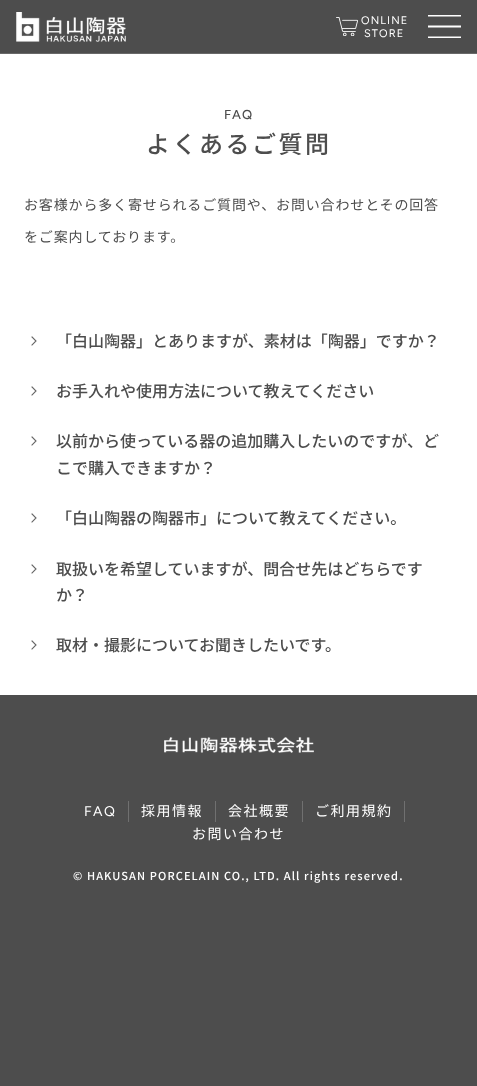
<svg xmlns="http://www.w3.org/2000/svg" width="477" height="1086" viewBox="0 0 477 1086">
  <rect width="100%" height="100%" fill="rgb(77,77,77)"/>
  <rect x="0" y="54" width="477" height="641" fill="rgb(255,255,255)"/>
  <rect x="0" y="53" width="477" height="1" fill="rgb(104,104,104)"/>
  <image x="16" y="12" width="110" height="30" href="pic1.png"/>
  <image x="336" y="17" width="22" height="19" href="pic2.png"/>
  <g font-family="Figtree" font-size="11" letter-spacing="1.1" fill="rgb(255,255,255)">
    <text x="361" y="24">ONLINE</text>
    <text x="364" y="37">STORE</text>
  </g>
  <path d="M428 38V36.5H461V38ZM428 25.5H461V27.5H428ZM428 15H461V16.5H428Z" fill="rgb(255,255,255)"/>
  <text x="224" y="119" font-family="Figtree" font-size="13" font-weight="500" letter-spacing="1" fill="rgb(77,77,77)">FAQ</text>
  <text x="146" y="153" font-family="Noto Sans JP" font-size="24" font-weight="500" letter-spacing="2.5" fill="rgb(77,77,77)">よくあるご質問</text>
  <g font-family="Noto Sans JP" font-size="14" letter-spacing="0.85" fill="rgb(77,77,77)">
    <text x="24" y="210">お客様から多く寄せられるご質問や、お問い合わせとその回答</text>
    <text x="24" y="242">をご案内しております。</text>
  </g>
  <path d="M32 337L36 341L32 345" fill="none" stroke="rgb(102,102,102)" stroke-width="1.1" stroke-linecap="square"/>
  <text x="56" y="347" font-family="Noto Sans JP" font-size="16" font-weight="500" fill="rgb(77,77,77)">「白山陶器」とありますが、素材は「陶器」ですか？</text>
  <path d="M32 387L36 391L32 395" fill="none" stroke="rgb(102,102,102)" stroke-width="1.1" stroke-linecap="square"/>
  <text x="56" y="397" font-family="Noto Sans JP" font-size="16" font-weight="500" fill="rgb(77,77,77)">お手入れや使用方法について教えてください</text>
  <path d="M32 437L36 441L32 445" fill="none" stroke="rgb(102,102,102)" stroke-width="1.1" stroke-linecap="square"/>
  <g font-family="Noto Sans JP" font-size="16" font-weight="500" fill="rgb(77,77,77)">
    <text>
      <tspan x="56" y="447">以前から使っている器の追加購入したいのですが、ど</tspan>
      <tspan x="56" y="474">こで購入できますか？</tspan>
    </text>
  </g>
  <path d="M32 514L36 518L32 522" fill="none" stroke="rgb(102,102,102)" stroke-width="1.1" stroke-linecap="square"/>
  <text x="56" y="524" font-family="Noto Sans JP" font-size="16" font-weight="500" fill="rgb(77,77,77)">「白山陶器の陶器市」について教えてください。</text>
  <path d="M32 565L36 569L32 573" fill="none" stroke="rgb(102,102,102)" stroke-width="1.1" stroke-linecap="square"/>
  <g font-family="Noto Sans JP" font-size="16" font-weight="500" fill="rgb(77,77,77)">
    <text>
      <tspan x="56" y="575">取扱いを希望していますが、問合せ先はどちらです</tspan>
      <tspan x="56" y="601">か？</tspan>
    </text>
  </g>
  <path d="M32 641L36 645L32 649" fill="none" stroke="rgb(102,102,102)" stroke-width="1.1" stroke-linecap="square"/>
  <text x="56" y="651" font-family="Noto Sans JP" font-size="16" font-weight="500" fill="rgb(77,77,77)">取材・撮影についてお聞きしたいです。</text>
  <image x="164" y="737" width="150" height="16" href="pic3.png"/>
  <rect x="128" y="801" width="1" height="21" fill="rgb(112,112,112)"/>
  <text x="84" y="816" font-family="Figtree" font-size="14" letter-spacing="1.5" fill="rgb(255,255,255)">FAQ</text>
  <rect x="215" y="801" width="1" height="21" fill="rgb(112,112,112)"/>
  <text x="141" y="816" font-family="Noto Sans JP" font-size="14" letter-spacing="1.5" fill="rgb(255,255,255)">採用情報</text>
  <rect x="302" y="801" width="1" height="21" fill="rgb(112,112,112)"/>
  <text x="228" y="816" font-family="Noto Sans JP" font-size="14" letter-spacing="1.5" fill="rgb(255,255,255)">会社概要</text>
  <rect x="404" y="801" width="1" height="21" fill="rgb(112,112,112)"/>
  <g font-family="Noto Sans JP" font-size="14" letter-spacing="1.5" fill="rgb(255,255,255)">
    <text x="315" y="816">ご利用規約</text>
    <text x="192" y="839">お問い合わせ</text>
  </g>
  <text x="73" y="880" font-family="Noto Sans JP" font-size="11" font-weight="500" letter-spacing="1.1" fill="rgb(255,255,255)">© HAKUSAN PORCELAIN CO., LTD. All rights reserved.</text>
</svg>
